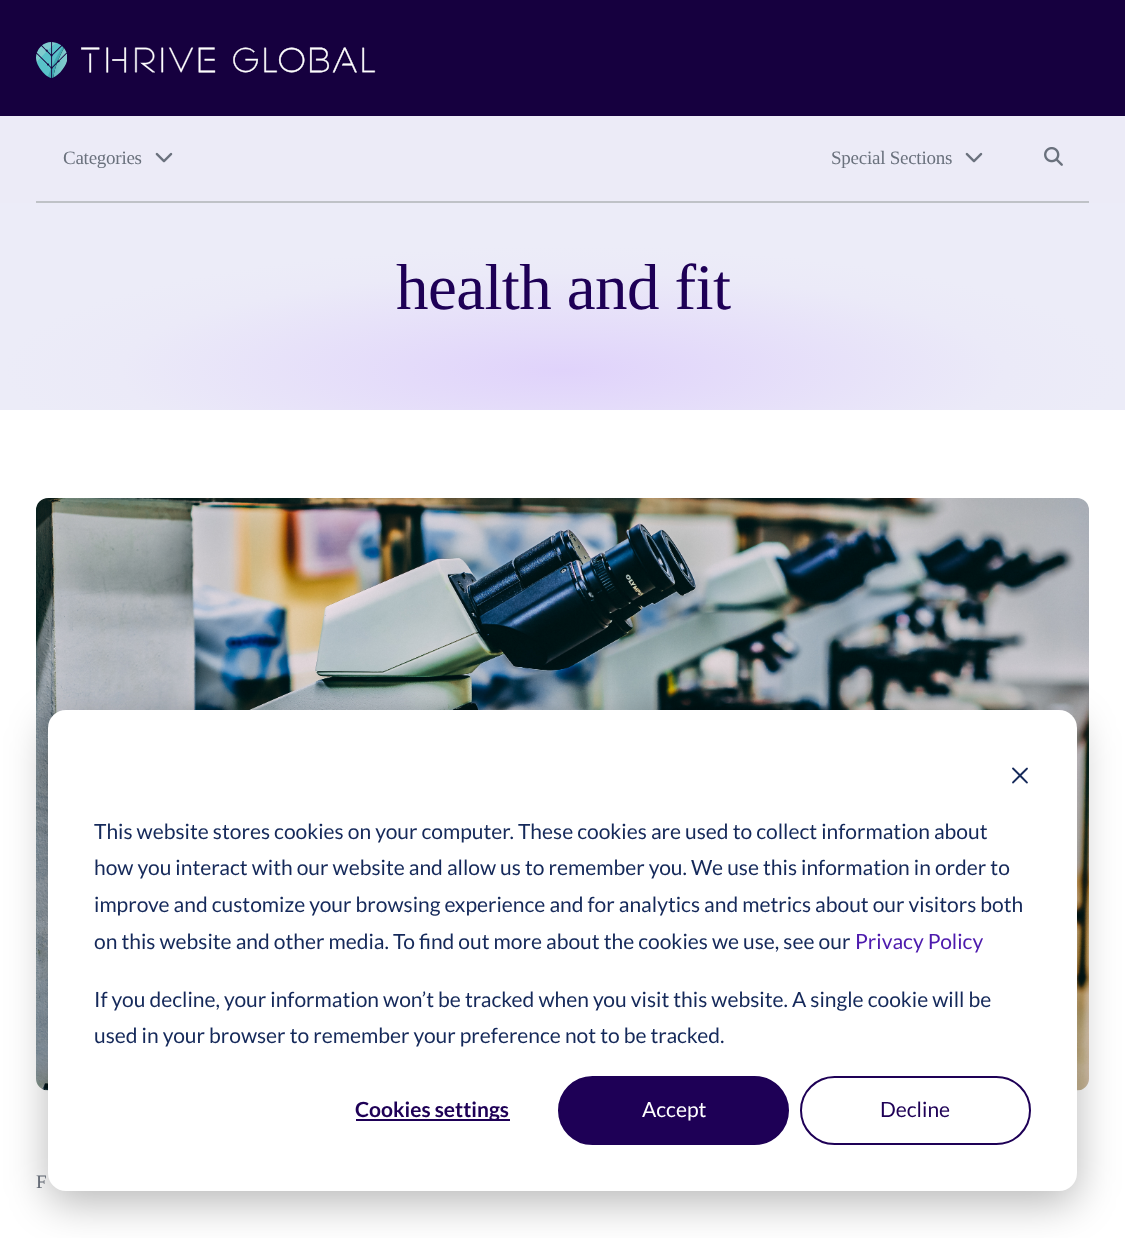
<svg xmlns="http://www.w3.org/2000/svg" width="1125" height="1238" viewBox="0 0 1125 1238">
  <defs>
    <radialGradient id="g1" gradientUnits="userSpaceOnUse" cx="0" cy="0" r="1" gradientTransform="matrix(560 0 0 125 563 371)"><stop offset="0" stop-color="rgb(224,211,251)"/><stop offset="0.79" stop-color="rgb(235,234,248)"/><stop offset="1" stop-color="rgb(236,236,248)"/></radialGradient>
  </defs>
  <rect width="100%" height="100%" fill="rgb(255,255,255)"/>
  <rect x="0" y="0" width="1125" height="116" fill="rgb(22,0,63)"/>
  <image x="36" y="42" width="340" height="36" href="pic1.png"/>
  <rect x="0" y="116" width="1125" height="87" fill="rgb(236,235,247)"/>
  <rect x="36" y="201" width="1053" height="2" fill="rgb(191,194,199)"/>
  <text x="63" y="164" font-family="Liberation Serif" font-size="19" letter-spacing="-0.25" fill="rgb(106,113,125)">Categories</text>
  <image x="155" y="152" width="18" height="11" href="pic2.png"/>
  <text x="831" y="164" font-family="Liberation Serif" font-size="19" letter-spacing="-0.25" fill="rgb(106,113,125)">Special Sections</text>
  <image x="965" y="152" width="18" height="11" href="pic2.png"/>
  <image x="1044" y="147" width="19" height="19" href="pic3.png"/>
  <rect x="0" y="203" width="1125" height="207" fill="url(#g1)"/>
  <text x="396" y="309" font-family="Liberation Serif" font-size="65" letter-spacing="-0.6" fill="rgb(30,0,86)">health and fit</text>
  <image x="36" y="498" width="1053" height="593" href="pic4.png"/>
  <text x="36" y="1188" font-family="Liberation Serif" font-size="19" letter-spacing="2" fill="rgb(106,113,125)">F</text>
  <rect x="48" y="722" width="1029" height="481" rx="18" fill="rgba(0,0,0,0.28)" filter="blur(21px)"/>
  <rect x="48" y="710" width="1029" height="481" rx="18" fill="rgb(255,255,255)"/>
  <image x="1012" y="767" width="16" height="17" href="pic5.png"/>
  <g font-family="Lato" font-size="21" fill="rgb(21,41,90)">
    <text>
      <tspan x="94" y="839">This website stores cookies on your computer. These cookies are used to collect information about</tspan>
      <tspan x="94" y="875">how you interact with our website and allow us to remember you. We use this information in order to</tspan>
      <tspan x="94" y="912">improve and customize your browsing experience and for analytics and metrics about our visitors both</tspan>
      <tspan x="94" y="949">on this website and other media. To find out more about the cookies we use, see our</tspan>
    </text>
  </g>
  <text x="855" y="949" font-family="Lato" font-size="21" fill="rgb(77,26,173)">Privacy Policy</text>
  <g font-family="Lato" font-size="21" fill="rgb(21,41,90)">
    <text>
      <tspan x="94" y="1007">If you decline, your information won’t be tracked when you visit this website. A single cookie will be</tspan>
      <tspan x="94" y="1043">used in your browser to remember your preference not to be tracked.</tspan>
    </text>
  </g>
  <rect x="356" y="1119" width="154" height="2" fill="rgb(30,0,86)"/>
  <text x="355" y="1117" font-family="Lato" font-size="21" font-weight="bold" fill="rgb(30,0,86)">Cookies settings</text>
  <rect x="559" y="1077" width="229" height="67" rx="33.5" fill="rgb(30,0,86)" stroke="rgb(30,0,86)" stroke-width="2"/>
  <text x="642" y="1117" font-family="Lato" font-size="21" fill="rgb(255,255,255)">Accept</text>
  <rect x="801" y="1077" width="229" height="67" rx="33.5" fill="none" stroke="rgb(30,0,86)" stroke-width="2"/>
  <text x="880" y="1117" font-family="Lato" font-size="21" fill="rgb(30,0,86)">Decline</text>
</svg>
